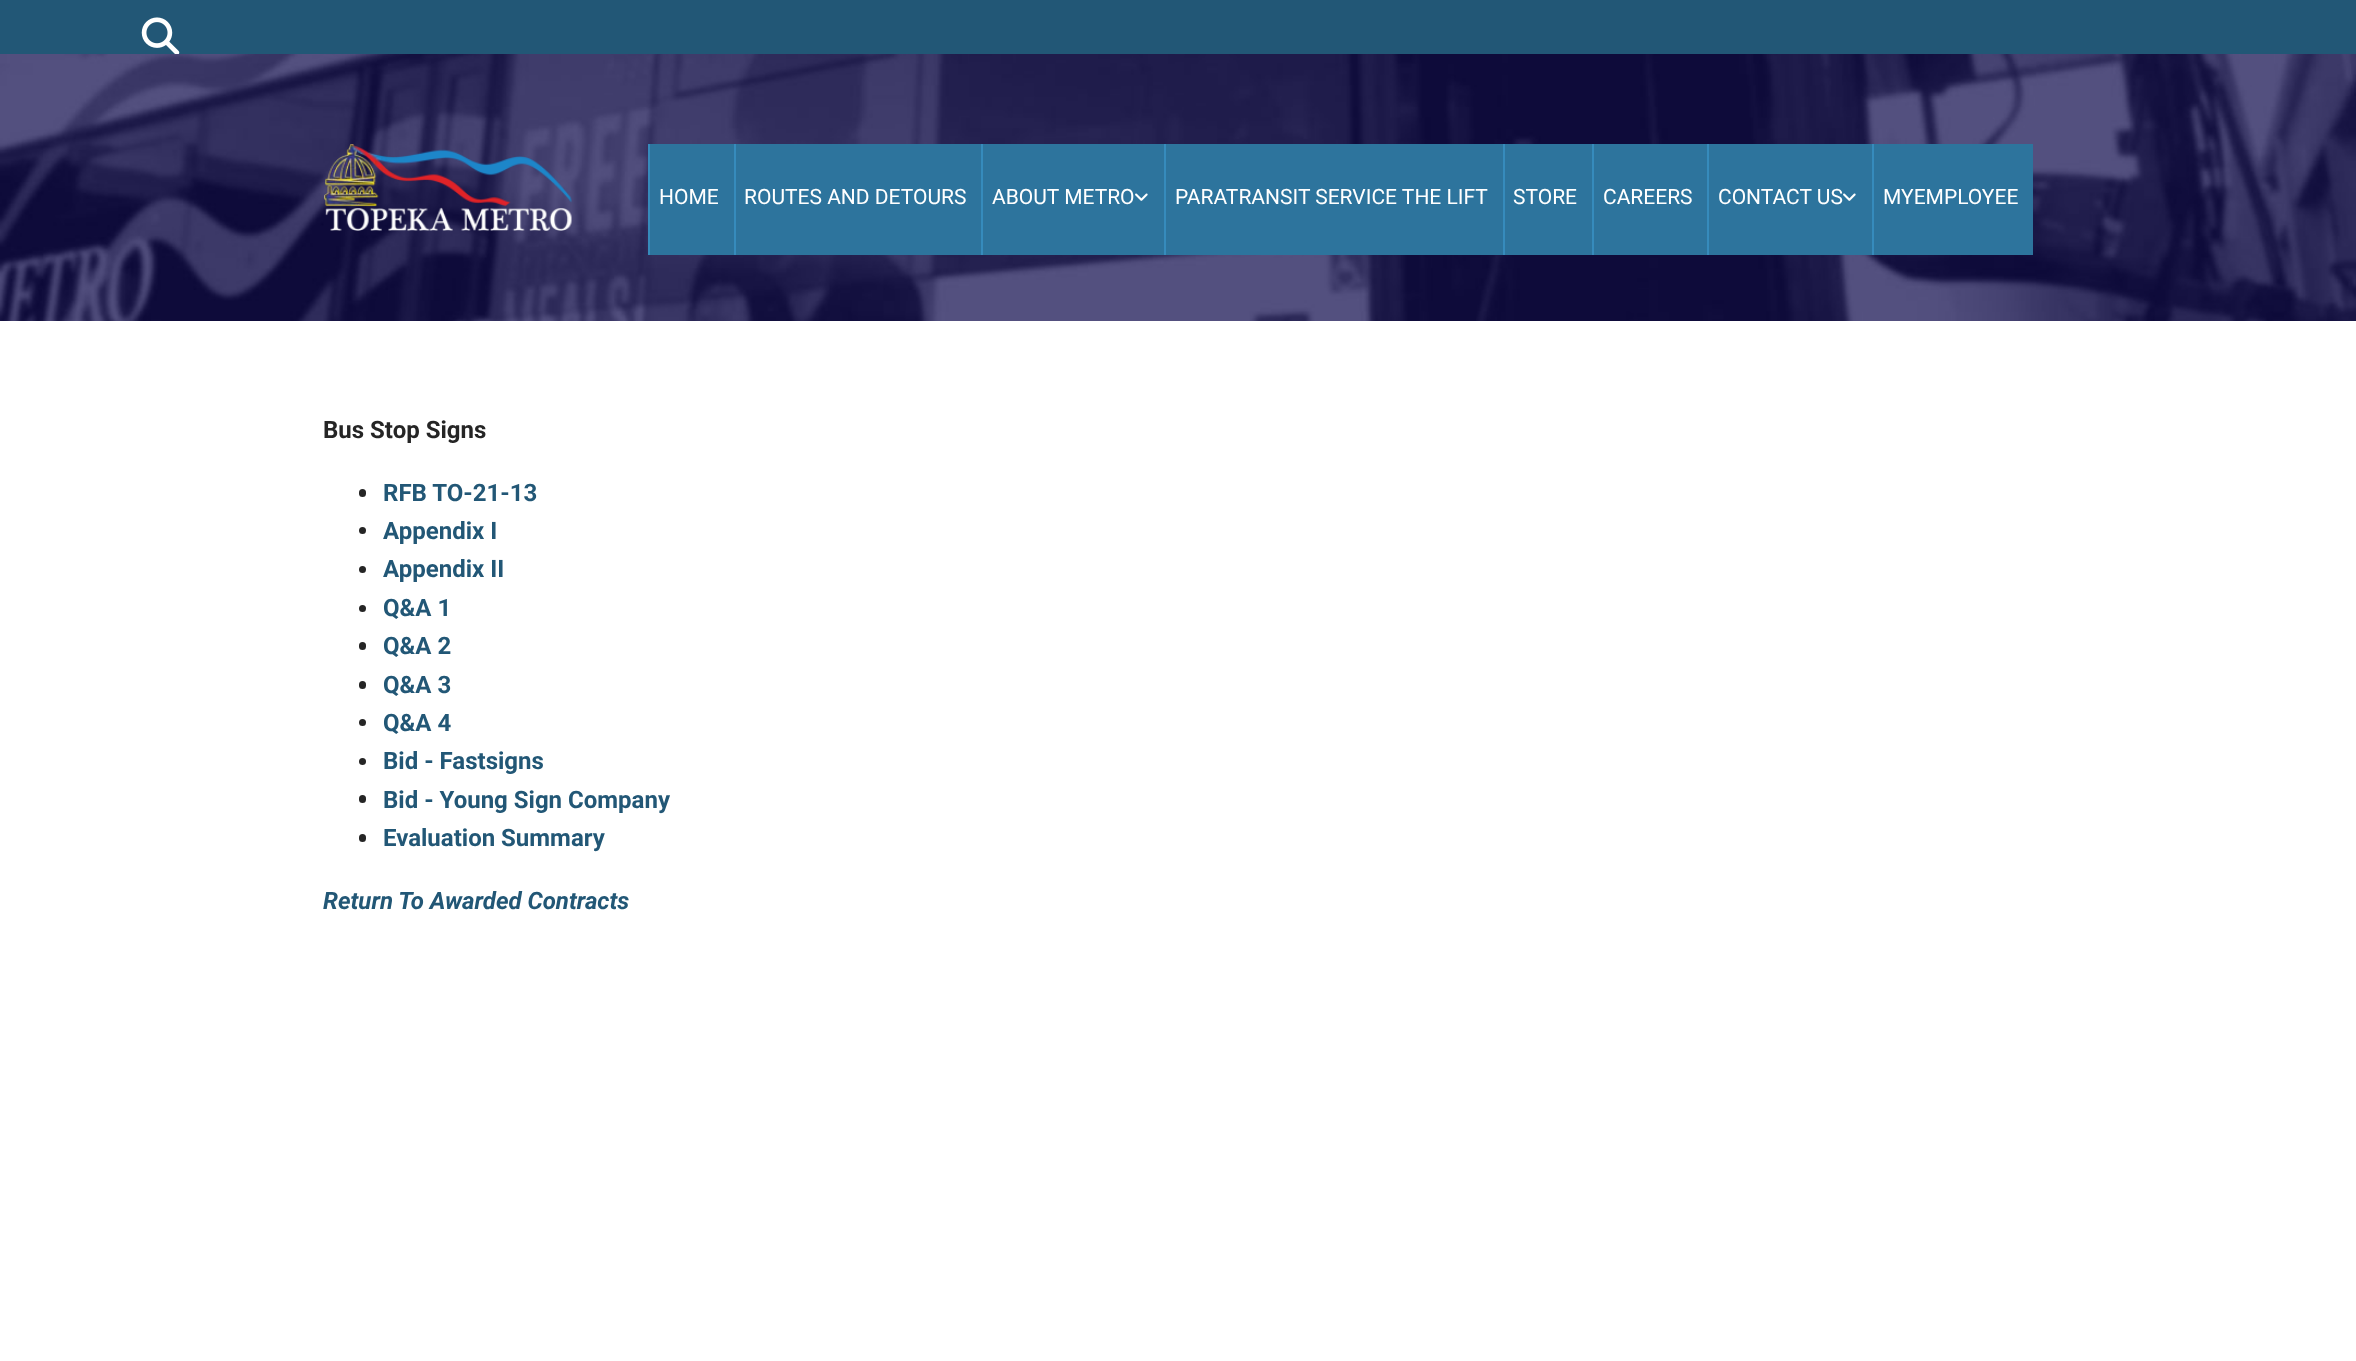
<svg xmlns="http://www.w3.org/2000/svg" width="2356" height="1361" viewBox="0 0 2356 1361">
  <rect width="100%" height="100%" fill="rgb(255,255,255)"/>
  <rect x="0" y="0" width="2356" height="54" fill="rgb(34,87,118)"/>
  <image x="141" y="17" width="39" height="37" href="pic1.png"/>
  <image x="0" y="54" width="2356" height="267" href="pic2.png"/>
  <image x="324" y="144" width="248" height="87" href="pic3.png"/>
  <rect x="650" y="144" width="84" height="111" fill="rgb(45,116,157)"/>
  <rect x="648" y="144" width="2" height="111" fill="rgb(54,139,188)"/>
  <text x="659" y="204" font-family="Roboto" font-size="21" fill="rgb(255,255,255)">HOME</text>
  <rect x="736" y="144" width="245" height="111" fill="rgb(45,116,157)"/>
  <rect x="734" y="144" width="2" height="111" fill="rgb(54,139,188)"/>
  <text x="744" y="204" font-family="Roboto" font-size="21" fill="rgb(255,255,255)">ROUTES AND DETOURS</text>
  <rect x="983" y="144" width="181" height="111" fill="rgb(45,116,157)"/>
  <rect x="981" y="144" width="2" height="111" fill="rgb(54,139,188)"/>
  <text x="992" y="204" font-family="Roboto" font-size="21" fill="rgb(255,255,255)">ABOUT METRO</text>
  <image x="1135" y="193" width="13" height="8" href="pic4.png"/>
  <rect x="1166" y="144" width="337" height="111" fill="rgb(45,116,157)"/>
  <rect x="1164" y="144" width="2" height="111" fill="rgb(54,139,188)"/>
  <text x="1175" y="204" font-family="Roboto" font-size="21" fill="rgb(255,255,255)">PARATRANSIT SERVICE THE LIFT</text>
  <rect x="1505" y="144" width="87" height="111" fill="rgb(45,116,157)"/>
  <rect x="1503" y="144" width="2" height="111" fill="rgb(54,139,188)"/>
  <text x="1513" y="204" font-family="Roboto" font-size="21" fill="rgb(255,255,255)">STORE</text>
  <rect x="1594" y="144" width="113" height="111" fill="rgb(45,116,157)"/>
  <rect x="1592" y="144" width="2" height="111" fill="rgb(54,139,188)"/>
  <text x="1603" y="204" font-family="Roboto" font-size="21" fill="rgb(255,255,255)">CAREERS</text>
  <rect x="1709" y="144" width="163" height="111" fill="rgb(45,116,157)"/>
  <rect x="1707" y="144" width="2" height="111" fill="rgb(54,139,188)"/>
  <text x="1718" y="204" font-family="Roboto" font-size="21" fill="rgb(255,255,255)">CONTACT US</text>
  <image x="1843" y="193" width="13" height="8" href="pic4.png"/>
  <rect x="1874" y="144" width="159" height="111" fill="rgb(45,116,157)"/>
  <rect x="1872" y="144" width="2" height="111" fill="rgb(54,139,188)"/>
  <text x="1883" y="204" font-family="Roboto" font-size="21" fill="rgb(255,255,255)">MYEMPLOYEE</text>
  <text x="323" y="438" font-family="Roboto" font-size="24" font-weight="bold" fill="rgb(37,37,37)">Bus Stop Signs</text>
  <rect x="359" y="489" width="7" height="8" rx="3.5" fill="rgb(37,37,37)"/>
  <text x="383" y="501" font-family="Roboto" font-size="24" font-weight="bold" fill="rgb(34,87,118)">RFB TO-21-13</text>
  <circle cx="362.5" cy="530.5" r="3.5" fill="rgb(37,37,37)"/>
  <text x="383" y="539" font-family="Roboto" font-size="24" font-weight="bold" fill="rgb(34,87,118)">Appendix I</text>
  <circle cx="362.5" cy="569.5" r="3.5" fill="rgb(37,37,37)"/>
  <text x="383" y="577" font-family="Roboto" font-size="24" font-weight="bold" fill="rgb(34,87,118)">Appendix II</text>
  <circle cx="362.5" cy="608.5" r="3.5" fill="rgb(37,37,37)"/>
  <text x="383" y="616" font-family="Roboto" font-size="24" font-weight="bold" fill="rgb(34,87,118)">Q&amp;A 1</text>
  <rect x="359" y="642" width="7" height="8" rx="3.5" fill="rgb(37,37,37)"/>
  <text x="383" y="654" font-family="Roboto" font-size="24" font-weight="bold" fill="rgb(34,87,118)">Q&amp;A 2</text>
  <rect x="359" y="681" width="7" height="8" rx="3.5" fill="rgb(37,37,37)"/>
  <text x="383" y="693" font-family="Roboto" font-size="24" font-weight="bold" fill="rgb(34,87,118)">Q&amp;A 3</text>
  <circle cx="362.5" cy="722.5" r="3.5" fill="rgb(37,37,37)"/>
  <text x="383" y="731" font-family="Roboto" font-size="24" font-weight="bold" fill="rgb(34,87,118)">Q&amp;A 4</text>
  <circle cx="362.5" cy="761.5" r="3.5" fill="rgb(37,37,37)"/>
  <text x="383" y="769" font-family="Roboto" font-size="24" font-weight="bold" fill="rgb(34,87,118)">Bid - Fastsigns</text>
  <rect x="359" y="795" width="7" height="8" rx="3.5" fill="rgb(37,37,37)"/>
  <text x="383" y="808" font-family="Roboto" font-size="24" font-weight="bold" fill="rgb(34,87,118)">Bid - Young Sign Company</text>
  <rect x="359" y="834" width="7" height="8" rx="3.5" fill="rgb(37,37,37)"/>
  <text x="383" y="846" font-family="Roboto" font-size="24" font-weight="bold" fill="rgb(34,87,118)">Evaluation Summary</text>
  <text x="323" y="909" font-family="Roboto" font-size="24" font-weight="bold" font-style="italic" fill="rgb(34,87,118)">Return To Awarded Contracts</text>
</svg>
